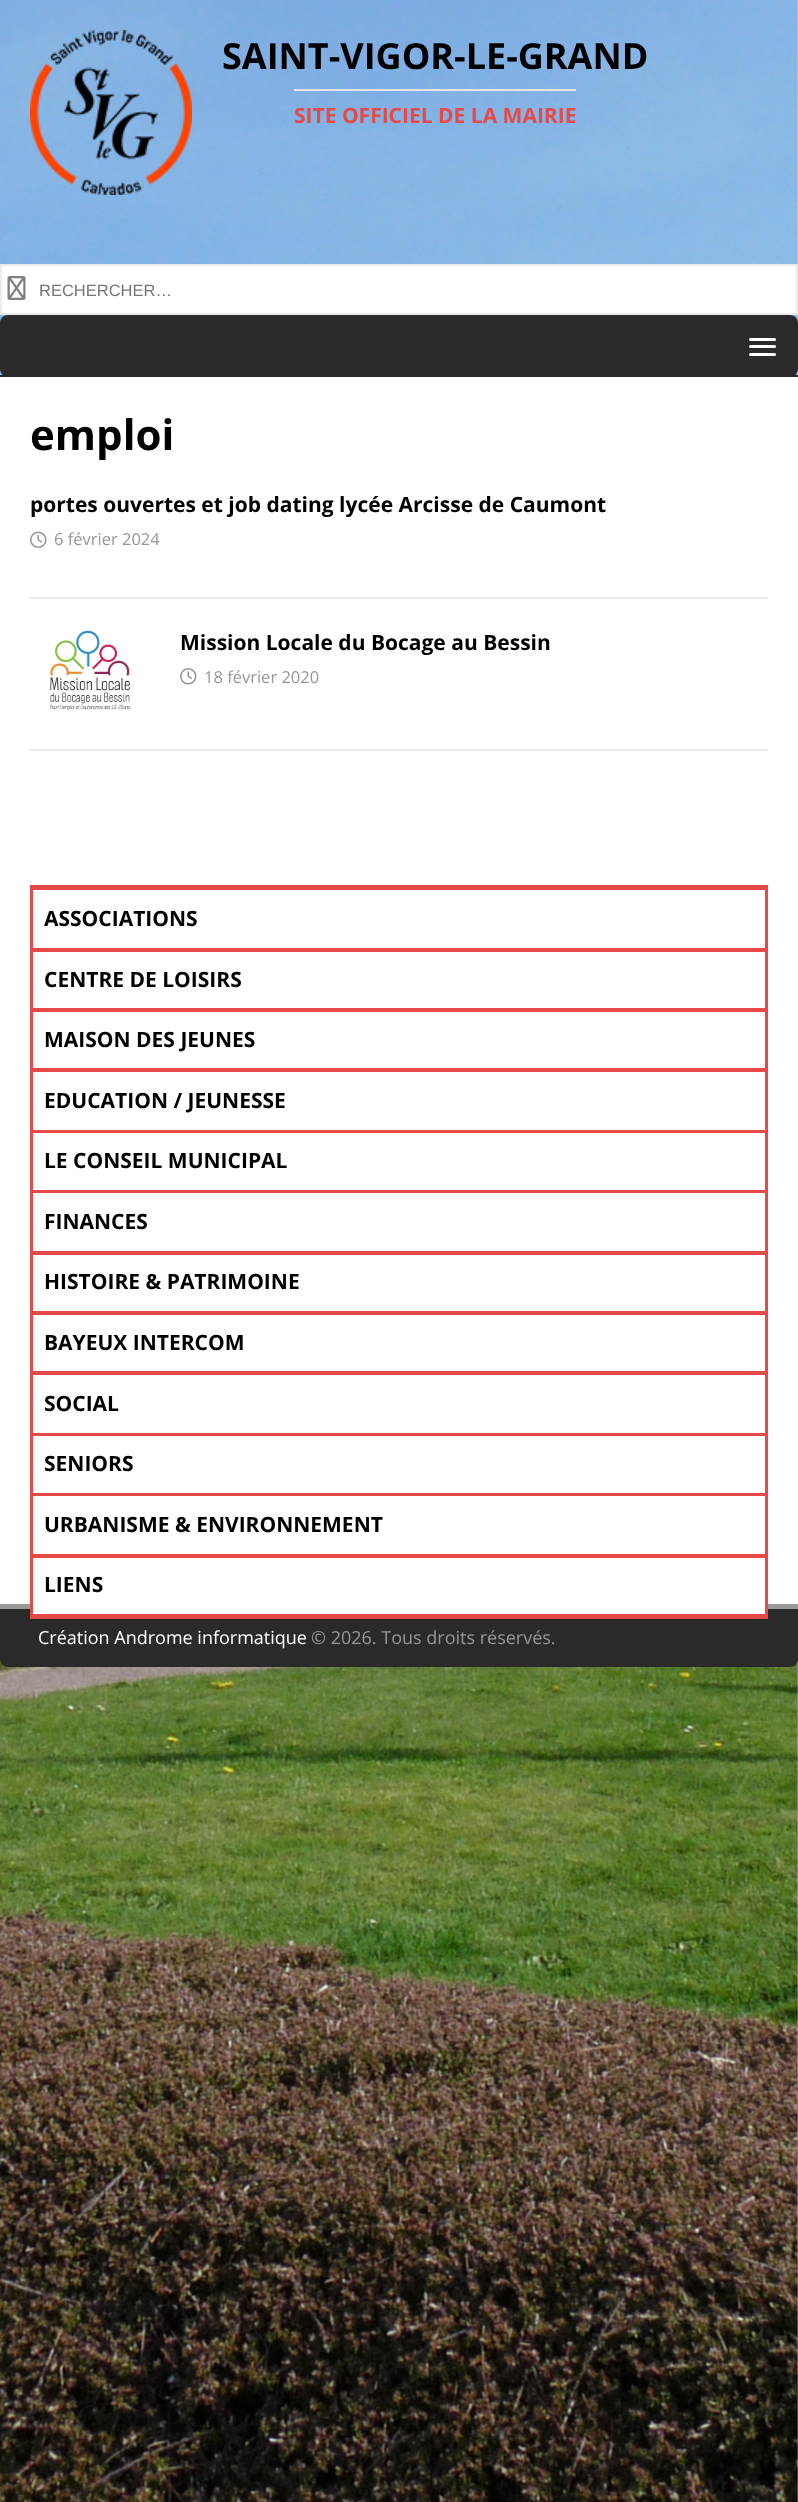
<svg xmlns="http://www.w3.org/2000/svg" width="798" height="2502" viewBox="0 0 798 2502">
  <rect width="100%" height="100%" fill="rgb(255,255,255)"/>
  <image x="0" y="0" width="798" height="2502" href="pic1.png"/>
  <image x="30" y="30" width="162" height="165" href="pic2.png"/>
  <text x="222" y="69" font-family="Open Sans" font-size="36" font-weight="bold" fill="rgb(0,0,0)">SAINT-VIGOR-LE-GRAND</text>
  <rect x="294" y="89" width="282" height="2" fill="rgb(229,229,229)"/>
  <text x="294" y="123" font-family="Open Sans" font-size="21" font-weight="bold" fill="rgb(230,73,70)">SITE OFFICIEL DE LA MAIRIE</text>
  <rect x="1" y="265" width="796" height="49" fill="rgb(255,255,255)" stroke="rgb(235,235,235)" stroke-width="2"/>
  <image x="7" y="276" width="19" height="24" href="pic3.png"/>
  <text x="39" y="296" font-family="Liberation Sans" font-size="16.5" fill="rgb(117,117,117)">RECHERCHER…</text>
  <rect x="0" y="315" width="798" height="62" rx="8" fill="rgb(42,42,42)"/>
  <rect x="0" y="375" width="798" height="2" fill="rgb(42,42,42)"/>
  <rect x="749" y="338" width="27" height="3" rx="1.5" fill="rgb(255,255,255)"/>
  <rect x="749" y="345" width="27" height="3" rx="1.5" fill="rgb(255,255,255)"/>
  <rect x="749" y="353" width="27" height="3" rx="1.5" fill="rgb(255,255,255)"/>
  <rect x="0" y="377" width="798" height="1227" fill="rgb(255,255,255)"/>
  <text x="30" y="450" font-family="Open Sans" font-size="42" font-weight="bold" fill="rgb(0,0,0)">emploi</text>
  <rect x="30" y="597" width="738" height="2" fill="rgb(235,235,235)"/>
  <text x="30" y="512" font-family="Open Sans" font-size="21" font-weight="bold" fill="rgb(0,0,0)">portes ouvertes et job dating lycée Arcisse de Caumont</text>
  <image x="30" y="531" width="17" height="17" href="pic4.png"/>
  <text x="54" y="545" font-family="Open Sans" font-size="16.5" fill="rgb(151,151,151)">6 février 2024</text>
  <rect x="30" y="749" width="738" height="2" fill="rgb(235,235,235)"/>
  <image x="49" y="630" width="82" height="80" href="pic5.png"/>
  <text x="180" y="650" font-family="Open Sans" font-size="21" font-weight="bold" fill="rgb(0,0,0)">Mission Locale du Bocage au Bessin</text>
  <image x="180" y="668" width="17" height="17" href="pic6.png"/>
  <text x="204" y="683" font-family="Open Sans" font-size="16.5" fill="rgb(151,151,151)">18 février 2020</text>
  <rect x="30" y="885" width="738" height="5" fill="rgb(230,73,70)"/>
  <path d="M0 1604H798V1659C798 1663.5 794.5 1667 790 1667H8C3.5 1667 0 1663.5 0 1659Z" fill="rgb(42,42,42)"/>
  <rect x="30" y="1616" width="738" height="3" fill="rgb(230,73,70)"/>
  <rect x="765" y="888" width="3" height="62" fill="rgb(230,73,70)"/>
  <rect x="30" y="948" width="738" height="4" fill="rgb(230,73,70)"/>
  <rect x="30" y="888" width="3" height="62" fill="rgb(230,73,70)"/>
  <text x="44" y="926" font-family="Open Sans" font-size="21" font-weight="bold" fill="rgb(0,0,0)">ASSOCIATIONS</text>
  <rect x="765" y="950" width="3" height="60" fill="rgb(230,73,70)"/>
  <rect x="30" y="1008" width="738" height="4" fill="rgb(230,73,70)"/>
  <rect x="30" y="950" width="3" height="60" fill="rgb(230,73,70)"/>
  <text x="44" y="987" font-family="Open Sans" font-size="21" font-weight="bold" fill="rgb(0,0,0)">CENTRE DE LOISIRS</text>
  <rect x="765" y="1010" width="3" height="60" fill="rgb(230,73,70)"/>
  <rect x="30" y="1068" width="738" height="4" fill="rgb(230,73,70)"/>
  <rect x="30" y="1010" width="3" height="60" fill="rgb(230,73,70)"/>
  <text x="44" y="1047" font-family="Open Sans" font-size="21" font-weight="bold" fill="rgb(0,0,0)">MAISON DES JEUNES</text>
  <rect x="765" y="1070" width="3" height="61" fill="rgb(230,73,70)"/>
  <rect x="30" y="1130" width="738" height="3" fill="rgb(230,73,70)"/>
  <rect x="30" y="1070" width="3" height="61" fill="rgb(230,73,70)"/>
  <text x="44" y="1108" font-family="Open Sans" font-size="21" font-weight="bold" fill="rgb(0,0,0)">EDUCATION / JEUNESSE</text>
  <rect x="765" y="1131" width="3" height="60" fill="rgb(230,73,70)"/>
  <rect x="30" y="1190" width="738" height="3" fill="rgb(230,73,70)"/>
  <rect x="30" y="1131" width="3" height="60" fill="rgb(230,73,70)"/>
  <text x="44" y="1168" font-family="Open Sans" font-size="21" font-weight="bold" fill="rgb(0,0,0)">LE CONSEIL MUNICIPAL</text>
  <rect x="765" y="1191" width="3" height="62" fill="rgb(230,73,70)"/>
  <rect x="30" y="1251" width="738" height="4" fill="rgb(230,73,70)"/>
  <rect x="30" y="1191" width="3" height="62" fill="rgb(230,73,70)"/>
  <text x="44" y="1229" font-family="Open Sans" font-size="21" font-weight="bold" fill="rgb(0,0,0)">FINANCES</text>
  <rect x="765" y="1253" width="3" height="60" fill="rgb(230,73,70)"/>
  <rect x="30" y="1311" width="738" height="4" fill="rgb(230,73,70)"/>
  <rect x="30" y="1253" width="3" height="60" fill="rgb(230,73,70)"/>
  <text x="44" y="1289" font-family="Open Sans" font-size="21" font-weight="bold" fill="rgb(0,0,0)">HISTOIRE &amp; PATRIMOINE</text>
  <rect x="765" y="1313" width="3" height="60" fill="rgb(230,73,70)"/>
  <rect x="30" y="1371" width="738" height="4" fill="rgb(230,73,70)"/>
  <rect x="30" y="1313" width="3" height="60" fill="rgb(230,73,70)"/>
  <text x="44" y="1350" font-family="Open Sans" font-size="21" font-weight="bold" fill="rgb(0,0,0)">BAYEUX INTERCOM</text>
  <rect x="765" y="1373" width="3" height="61" fill="rgb(230,73,70)"/>
  <rect x="30" y="1433" width="738" height="3" fill="rgb(230,73,70)"/>
  <rect x="30" y="1373" width="3" height="61" fill="rgb(230,73,70)"/>
  <text x="44" y="1411" font-family="Open Sans" font-size="21" font-weight="bold" fill="rgb(0,0,0)">SOCIAL</text>
  <rect x="765" y="1434" width="3" height="60" fill="rgb(230,73,70)"/>
  <rect x="30" y="1493" width="738" height="3" fill="rgb(230,73,70)"/>
  <rect x="30" y="1434" width="3" height="60" fill="rgb(230,73,70)"/>
  <text x="44" y="1471" font-family="Open Sans" font-size="21" font-weight="bold" fill="rgb(0,0,0)">SENIORS</text>
  <rect x="765" y="1494" width="3" height="62" fill="rgb(230,73,70)"/>
  <rect x="30" y="1554" width="738" height="4" fill="rgb(230,73,70)"/>
  <rect x="30" y="1494" width="3" height="62" fill="rgb(230,73,70)"/>
  <text x="44" y="1532" font-family="Open Sans" font-size="21" font-weight="bold" fill="rgb(0,0,0)">URBANISME &amp; ENVIRONNEMENT</text>
  <rect x="0" y="1604" width="798" height="5" fill="rgb(153,153,153)"/>
  <rect x="33" y="1604" width="732" height="10" fill="rgb(255,255,255)"/>
  <rect x="765" y="1556" width="3" height="60" fill="rgb(230,73,70)"/>
  <rect x="30" y="1614" width="738" height="2" fill="rgb(230,73,70)"/>
  <rect x="30" y="1556" width="3" height="60" fill="rgb(230,73,70)"/>
  <text x="44" y="1592" font-family="Open Sans" font-size="21" font-weight="bold" fill="rgb(0,0,0)">LIENS</text>
  <text x="38" y="1644" font-family="Open Sans" font-size="18" fill="rgb(255,255,255)">Création Androme informatique</text>
  <text x="311" y="1644" font-family="Open Sans" font-size="18" fill="rgb(151,151,151)">© 2026. Tous droits réservés.</text>
</svg>
